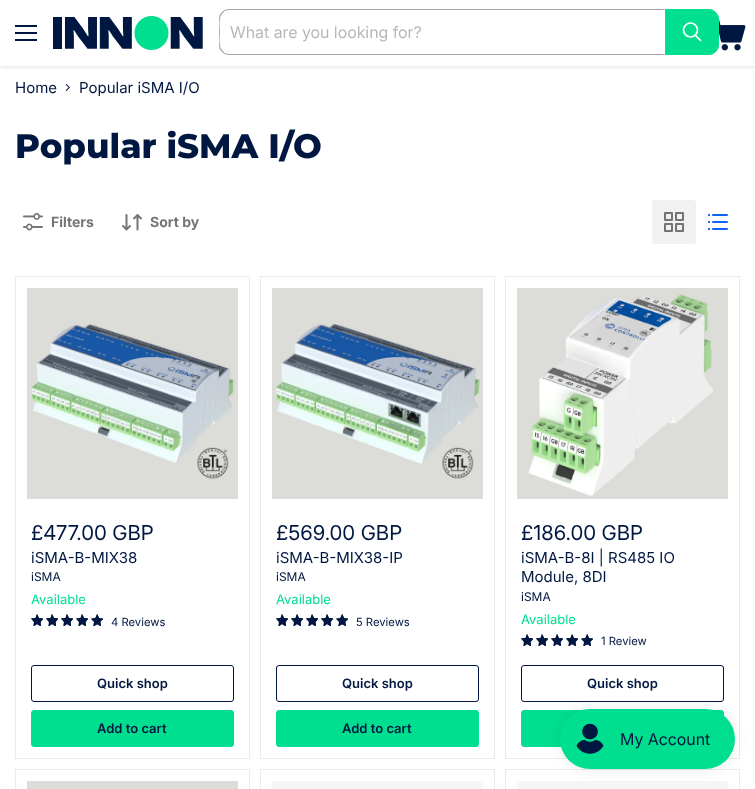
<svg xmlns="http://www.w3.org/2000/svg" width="755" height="789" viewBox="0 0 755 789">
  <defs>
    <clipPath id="clip1"><rect x="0" y="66" width="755" height="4"/></clipPath>
    <clipPath id="clip2"><rect x="31" y="614" width="12" height="12"/></clipPath>
    <clipPath id="clip3"><path d="M37 614L39 618L43.5 618.5L40.5 622L41 626.5L37 624L33.5 626.5L34 622L31 618.5L35.5 618Z"/></clipPath>
    <clipPath id="clip4"><rect x="46" y="614" width="12" height="12"/></clipPath>
    <clipPath id="clip5"><path d="M52 614L54 618L58.5 618.5L55.5 622L56 626.5L52 624L48.5 626.5L49 622L46 618.5L50.5 618Z"/></clipPath>
    <clipPath id="clip6"><rect x="61" y="614" width="12" height="12"/></clipPath>
    <clipPath id="clip7"><path d="M67 614L69 618L73.5 618.5L70.5 622L71 626.5L67 624L63.5 626.5L64 622L61 618.5L65.5 618Z"/></clipPath>
    <clipPath id="clip8"><rect x="76" y="614" width="12" height="12"/></clipPath>
    <clipPath id="clip9"><path d="M82 614L84 618L88.5 618.5L85.5 622L86 626.5L82 624L78.5 626.5L79 622L76 618.5L80.5 618Z"/></clipPath>
    <clipPath id="clip10"><rect x="276" y="614" width="12" height="12"/></clipPath>
    <clipPath id="clip11"><path d="M282 614L284 618L288.5 618.5L285.5 622L286 626.5L282 624L278.5 626.5L279 622L276 618.5L280.5 618Z"/></clipPath>
    <clipPath id="clip12"><rect x="291" y="614" width="12" height="12"/></clipPath>
    <clipPath id="clip13"><path d="M297 614L299 618L303.5 618.5L300.5 622L301 626.5L297 624L293.5 626.5L294 622L291 618.5L295.5 618Z"/></clipPath>
    <clipPath id="clip14"><rect x="306" y="614" width="12" height="12"/></clipPath>
    <clipPath id="clip15"><path d="M312 614L314 618L318.5 618.5L315.5 622L316 626.5L312 624L308.5 626.5L309 622L306 618.5L310.5 618Z"/></clipPath>
    <clipPath id="clip16"><rect x="321" y="614" width="12" height="12"/></clipPath>
    <clipPath id="clip17"><path d="M327 614L329 618L333.5 618.5L330.5 622L331 626.5L327 624L323.5 626.5L324 622L321 618.5L325.5 618Z"/></clipPath>
    <clipPath id="clip18"><rect x="521" y="634" width="12" height="12"/></clipPath>
    <clipPath id="clip19"><path d="M527 634L529 638L533.5 638.5L530.5 642L531 646.5L527 644L523.5 646.5L524 642L521 638.5L525.5 638Z"/></clipPath>
    <clipPath id="clip20"><rect x="536" y="634" width="12" height="12"/></clipPath>
    <clipPath id="clip21"><path d="M542 634L544 638L548.5 638.5L545.5 642L546 646.5L542 644L538.5 646.5L539 642L536 638.5L540.5 638Z"/></clipPath>
    <clipPath id="clip22"><rect x="551" y="634" width="12" height="12"/></clipPath>
    <clipPath id="clip23"><path d="M557 634L559 638L563.5 638.5L560.5 642L561 646.5L557 644L553.5 646.5L554 642L551 638.5L555.5 638Z"/></clipPath>
    <clipPath id="clip24"><rect x="566" y="634" width="12" height="12"/></clipPath>
    <clipPath id="clip25"><path d="M572 634L574 638L578.5 638.5L575.5 642L576 646.5L572 644L568.5 646.5L569 642L566 638.5L570.5 638Z"/></clipPath>
  </defs>
  <rect width="100%" height="100%" fill="rgb(255,255,255)"/>
  <g clip-path="url(#clip1)">
    <rect x="0" y="1" width="755" height="66" fill="rgba(128,128,128,0.25)" filter="blur(2px)"/>
  </g>
  <rect x="15" y="25" width="22" height="2" fill="rgb(0,23,65)"/>
  <rect x="15" y="32" width="22" height="2" fill="rgb(0,23,65)"/>
  <rect x="15" y="39" width="22" height="2" fill="rgb(0,23,65)"/>
  <image x="53" y="16" width="150" height="34" href="pic1.png"/>
  <path d="M229 9C226 9 224 10 222 12L223 13C224 11 226 10 229 10H664L665 9Z" fill="rgb(166,166,166)"/>
  <path d="M665 55L664 54H229C226 54 224 53 223 51L222 52C224 54 226 55 229 55Z" fill="rgb(166,166,166)"/>
  <path d="M219 19V45C219 48 220 50 222 52L223 51C218 47 220 37 220 32C220 27 218 17 223 13L222 12C220 14 219 16 219 19Z" fill="rgb(166,166,166)"/>
  <text x="230" y="38" font-family="'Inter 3'" font-size="16" fill="rgb(184,184,184)">What are you looking for?</text>
  <image x="718" y="16" width="28" height="35" href="pic2.png"/>
  <path d="M665.5 9.5H709C714 9.5 718.5 14 718.5 19V45C718.5 50 714 54.5 709 54.5H665.5Z" fill="rgb(0,223,143)" stroke="rgb(0,223,143)"/>
  <path d="M700.5 40.5L695.5 35.5" fill="none" stroke="rgb(255,255,255)" stroke-width="1.7" stroke-linecap="round"/>
  <circle cx="690.5" cy="30" r="7" fill="none" stroke="rgb(255,255,255)" stroke-width="1.7"/>
  <text x="15" y="93" font-family="Inter" font-size="15" fill="rgb(0,23,65)">Home</text>
  <image x="65" y="84" width="5" height="8" href="pic3.png"/>
  <text x="79" y="93" font-family="Inter" font-size="15" fill="rgb(0,23,65)">Popular iSMA I/O</text>
  <text x="15" y="158" font-family="Montserrat" font-size="34" font-weight="800" fill="rgb(0,23,65)">Popular iSMA I/O</text>
  <image x="23" y="213" width="20" height="18" href="pic4.png"/>
  <text x="51" y="227" font-family="Inter" font-size="14" font-weight="bold" fill="rgb(116,116,116)">Filters</text>
  <image x="122" y="214" width="20" height="17" href="pic5.png"/>
  <text x="150" y="227" font-family="Inter" font-size="14" font-weight="bold" fill="rgb(116,116,116)">Sort by</text>
  <rect x="652" y="200" width="44" height="44" rx="3" fill="rgb(241,241,241)"/>
  <image x="664" y="212" width="20" height="20" href="pic6.png"/>
  <image x="708" y="214" width="20" height="16" href="pic7.png"/>
  <rect x="15.5" y="276.5" width="234" height="482" fill="none" stroke="rgb(235,235,235)"/>
  <image x="27" y="288" width="211" height="211" href="pic8.png"/>
  <text x="31" y="540" font-family="'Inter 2'" font-size="20.5" fill="rgb(0,23,65)">£477.00 GBP</text>
  <text x="31" y="563" font-family="Inter" font-size="15" fill="rgb(0,23,65)">iSMA-B-MIX38</text>
  <text x="31" y="581" font-family="Inter" font-size="12" fill="rgb(0,23,65)">iSMA</text>
  <text x="31" y="604" font-family="Inter" font-size="13" fill="rgb(0,223,143)">Available</text>
  <g clip-path="url(#clip2)">
    <path d="M37 614L35.5 618L31 618.5L34 622L33.5 626.5L37 624L41 626.5L40.5 622L43.5 618.5L39 618Z" fill="rgb(0,23,65)"/>
  </g>
  <g clip-path="url(#clip2)">
    <g clip-path="url(#clip3)">
      <path d="M37 614L39 618L43.5 618.5L40.5 622L41 626.5L37 624L33.5 626.5L34 622L31 618.5L35.5 618Z" fill="none" stroke="rgb(0,23,65)" stroke-width="1.8" stroke-linecap="round" stroke-linejoin="round"/>
    </g>
  </g>
  <g clip-path="url(#clip4)">
    <path d="M52 614L50.5 618L46 618.5L49 622L48.5 626.5L52 624L56 626.5L55.5 622L58.5 618.5L54 618Z" fill="rgb(0,23,65)"/>
  </g>
  <g clip-path="url(#clip4)">
    <g clip-path="url(#clip5)">
      <path d="M52 614L54 618L58.5 618.5L55.5 622L56 626.5L52 624L48.5 626.5L49 622L46 618.5L50.5 618Z" fill="none" stroke="rgb(0,23,65)" stroke-width="1.8" stroke-linecap="round" stroke-linejoin="round"/>
    </g>
  </g>
  <g clip-path="url(#clip6)">
    <path d="M67 614L65.5 618L61 618.5L64 622L63.5 626.5L67 624L71 626.5L70.5 622L73.5 618.5L69 618Z" fill="rgb(0,23,65)"/>
  </g>
  <g clip-path="url(#clip6)">
    <g clip-path="url(#clip7)">
      <path d="M67 614L69 618L73.5 618.5L70.5 622L71 626.5L67 624L63.5 626.5L64 622L61 618.5L65.5 618Z" fill="none" stroke="rgb(0,23,65)" stroke-width="1.8" stroke-linecap="round" stroke-linejoin="round"/>
    </g>
  </g>
  <g clip-path="url(#clip8)">
    <path d="M82 614L80.5 618L76 618.5L79 622L78.5 626.5L82 624L86 626.5L85.5 622L88.5 618.5L84 618Z" fill="rgb(0,23,65)"/>
  </g>
  <g clip-path="url(#clip8)">
    <g clip-path="url(#clip9)">
      <path d="M82 614L84 618L88.5 618.5L85.5 622L86 626.5L82 624L78.5 626.5L79 622L76 618.5L80.5 618Z" fill="none" stroke="rgb(0,23,65)" stroke-width="1.8" stroke-linecap="round" stroke-linejoin="round"/>
    </g>
  </g>
  <image x="91" y="614" width="12" height="12" href="pic9.png"/>
  <text x="111" y="626" font-family="Inter" font-size="11.25" fill="rgb(0,23,65)">4 Reviews</text>
  <rect x="31.5" y="665.5" width="202" height="36" rx="2.5" fill="none" stroke="rgb(0,23,65)"/>
  <text x="97" y="688" font-family="Inter" font-size="13" font-weight="600" fill="rgb(0,23,65)">Quick shop</text>
  <rect x="31.5" y="710.5" width="202" height="36" rx="2.5" fill="rgb(0,223,143)" stroke="rgb(0,223,143)"/>
  <text x="97" y="733" font-family="Inter" font-size="13" font-weight="600" fill="rgb(0,23,65)">Add to cart</text>
  <rect x="260.5" y="276.5" width="234" height="482" fill="none" stroke="rgb(235,235,235)"/>
  <image x="272" y="288" width="211" height="211" href="pic10.png"/>
  <text x="276" y="540" font-family="'Inter 2'" font-size="20.5" fill="rgb(0,23,65)">£569.00 GBP</text>
  <text x="276" y="563" font-family="Inter" font-size="15" fill="rgb(0,23,65)">iSMA-B-MIX38-IP</text>
  <text x="276" y="581" font-family="Inter" font-size="12" fill="rgb(0,23,65)">iSMA</text>
  <text x="276" y="604" font-family="Inter" font-size="13" fill="rgb(0,223,143)">Available</text>
  <g clip-path="url(#clip10)">
    <path d="M282 614L280.5 618L276 618.5L279 622L278.5 626.5L282 624L286 626.5L285.5 622L288.5 618.5L284 618Z" fill="rgb(0,23,65)"/>
  </g>
  <g clip-path="url(#clip10)">
    <g clip-path="url(#clip11)">
      <path d="M282 614L284 618L288.5 618.5L285.5 622L286 626.5L282 624L278.5 626.5L279 622L276 618.5L280.5 618Z" fill="none" stroke="rgb(0,23,65)" stroke-width="1.8" stroke-linecap="round" stroke-linejoin="round"/>
    </g>
  </g>
  <g clip-path="url(#clip12)">
    <path d="M297 614L295.5 618L291 618.5L294 622L293.5 626.5L297 624L301 626.5L300.5 622L303.5 618.5L299 618Z" fill="rgb(0,23,65)"/>
  </g>
  <g clip-path="url(#clip12)">
    <g clip-path="url(#clip13)">
      <path d="M297 614L299 618L303.5 618.5L300.5 622L301 626.5L297 624L293.5 626.5L294 622L291 618.5L295.5 618Z" fill="none" stroke="rgb(0,23,65)" stroke-width="1.8" stroke-linecap="round" stroke-linejoin="round"/>
    </g>
  </g>
  <g clip-path="url(#clip14)">
    <path d="M312 614L310.5 618L306 618.5L309 622L308.5 626.5L312 624L316 626.5L315.5 622L318.5 618.5L314 618Z" fill="rgb(0,23,65)"/>
  </g>
  <g clip-path="url(#clip14)">
    <g clip-path="url(#clip15)">
      <path d="M312 614L314 618L318.5 618.5L315.5 622L316 626.5L312 624L308.5 626.5L309 622L306 618.5L310.5 618Z" fill="none" stroke="rgb(0,23,65)" stroke-width="1.8" stroke-linecap="round" stroke-linejoin="round"/>
    </g>
  </g>
  <g clip-path="url(#clip16)">
    <path d="M327 614L325.5 618L321 618.5L324 622L323.5 626.5L327 624L331 626.5L330.5 622L333.5 618.5L329 618Z" fill="rgb(0,23,65)"/>
  </g>
  <g clip-path="url(#clip16)">
    <g clip-path="url(#clip17)">
      <path d="M327 614L329 618L333.5 618.5L330.5 622L331 626.5L327 624L323.5 626.5L324 622L321 618.5L325.5 618Z" fill="none" stroke="rgb(0,23,65)" stroke-width="1.8" stroke-linecap="round" stroke-linejoin="round"/>
    </g>
  </g>
  <image x="336" y="614" width="12" height="12" href="pic9.png"/>
  <text x="356" y="626" font-family="Inter" font-size="11.25" fill="rgb(0,23,65)">5 Reviews</text>
  <rect x="276.5" y="665.5" width="202" height="36" rx="2.5" fill="none" stroke="rgb(0,23,65)"/>
  <text x="342" y="688" font-family="Inter" font-size="13" font-weight="600" fill="rgb(0,23,65)">Quick shop</text>
  <rect x="276.5" y="710.5" width="202" height="36" rx="2.5" fill="rgb(0,223,143)" stroke="rgb(0,223,143)"/>
  <text x="342" y="733" font-family="Inter" font-size="13" font-weight="600" fill="rgb(0,23,65)">Add to cart</text>
  <rect x="505.5" y="276.5" width="234" height="482" fill="none" stroke="rgb(235,235,235)"/>
  <image x="517" y="288" width="211" height="211" href="pic11.png"/>
  <text x="521" y="540" font-family="'Inter 2'" font-size="20.5" fill="rgb(0,23,65)">£186.00 GBP</text>
  <g font-family="Inter" font-size="15" fill="rgb(0,23,65)">
    <text>
      <tspan x="521" y="563">iSMA-B-8I | RS485 IO</tspan>
      <tspan x="521" y="582">Module, 8DI</tspan>
    </text>
  </g>
  <text x="521" y="601" font-family="Inter" font-size="12" fill="rgb(0,23,65)">iSMA</text>
  <text x="521" y="624" font-family="Inter" font-size="13" fill="rgb(0,223,143)">Available</text>
  <g clip-path="url(#clip18)">
    <path d="M527 634L525.5 638L521 638.5L524 642L523.5 646.5L527 644L531 646.5L530.5 642L533.5 638.5L529 638Z" fill="rgb(0,23,65)"/>
  </g>
  <g clip-path="url(#clip18)">
    <g clip-path="url(#clip19)">
      <path d="M527 634L529 638L533.5 638.5L530.5 642L531 646.5L527 644L523.5 646.5L524 642L521 638.5L525.5 638Z" fill="none" stroke="rgb(0,23,65)" stroke-width="1.8" stroke-linecap="round" stroke-linejoin="round"/>
    </g>
  </g>
  <g clip-path="url(#clip20)">
    <path d="M542 634L540.5 638L536 638.5L539 642L538.5 646.5L542 644L546 646.5L545.5 642L548.5 638.5L544 638Z" fill="rgb(0,23,65)"/>
  </g>
  <g clip-path="url(#clip20)">
    <g clip-path="url(#clip21)">
      <path d="M542 634L544 638L548.5 638.5L545.5 642L546 646.5L542 644L538.5 646.5L539 642L536 638.5L540.5 638Z" fill="none" stroke="rgb(0,23,65)" stroke-width="1.8" stroke-linecap="round" stroke-linejoin="round"/>
    </g>
  </g>
  <g clip-path="url(#clip22)">
    <path d="M557 634L555.5 638L551 638.5L554 642L553.5 646.5L557 644L561 646.5L560.5 642L563.5 638.5L559 638Z" fill="rgb(0,23,65)"/>
  </g>
  <g clip-path="url(#clip22)">
    <g clip-path="url(#clip23)">
      <path d="M557 634L559 638L563.5 638.5L560.5 642L561 646.5L557 644L553.5 646.5L554 642L551 638.5L555.5 638Z" fill="none" stroke="rgb(0,23,65)" stroke-width="1.8" stroke-linecap="round" stroke-linejoin="round"/>
    </g>
  </g>
  <g clip-path="url(#clip24)">
    <path d="M572 634L570.5 638L566 638.5L569 642L568.5 646.5L572 644L576 646.5L575.5 642L578.5 638.5L574 638Z" fill="rgb(0,23,65)"/>
  </g>
  <g clip-path="url(#clip24)">
    <g clip-path="url(#clip25)">
      <path d="M572 634L574 638L578.5 638.5L575.5 642L576 646.5L572 644L568.5 646.5L569 642L566 638.5L570.5 638Z" fill="none" stroke="rgb(0,23,65)" stroke-width="1.8" stroke-linecap="round" stroke-linejoin="round"/>
    </g>
  </g>
  <image x="581" y="634" width="12" height="12" href="pic9.png"/>
  <text x="601" y="645" font-family="Inter" font-size="11.25" fill="rgb(0,23,65)">1 Review</text>
  <rect x="521.5" y="665.5" width="202" height="36" rx="2.5" fill="none" stroke="rgb(0,23,65)"/>
  <text x="587" y="688" font-family="Inter" font-size="13" font-weight="600" fill="rgb(0,23,65)">Quick shop</text>
  <rect x="521.5" y="710.5" width="202" height="36" rx="2.5" fill="rgb(0,223,143)" stroke="rgb(0,223,143)"/>
  <rect x="15.5" y="769.5" width="234" height="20" fill="none" stroke="rgb(235,235,235)"/>
  <rect x="27" y="781" width="211" height="8" fill="rgb(220,221,216)"/>
  <rect x="260.5" y="769.5" width="234" height="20" fill="none" stroke="rgb(235,235,235)"/>
  <rect x="272" y="781" width="211" height="8" fill="rgb(245,246,247)"/>
  <rect x="505.5" y="769.5" width="234" height="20" fill="none" stroke="rgb(235,235,235)"/>
  <rect x="517" y="781" width="211" height="8" fill="rgb(245,246,247)"/>
  <rect x="560" y="709" width="175" height="60" rx="30" fill="rgba(0,0,0,0.08)" filter="blur(7.5px)"/>
  <rect x="560" y="709" width="175" height="60" rx="30" fill="rgb(0,223,143)"/>
  <image x="576" y="723" width="28" height="31" href="pic12.png"/>
  <text x="620" y="745" font-family="'Inter 3'" font-size="16" fill="rgb(0,23,65)">My Account</text>
</svg>
